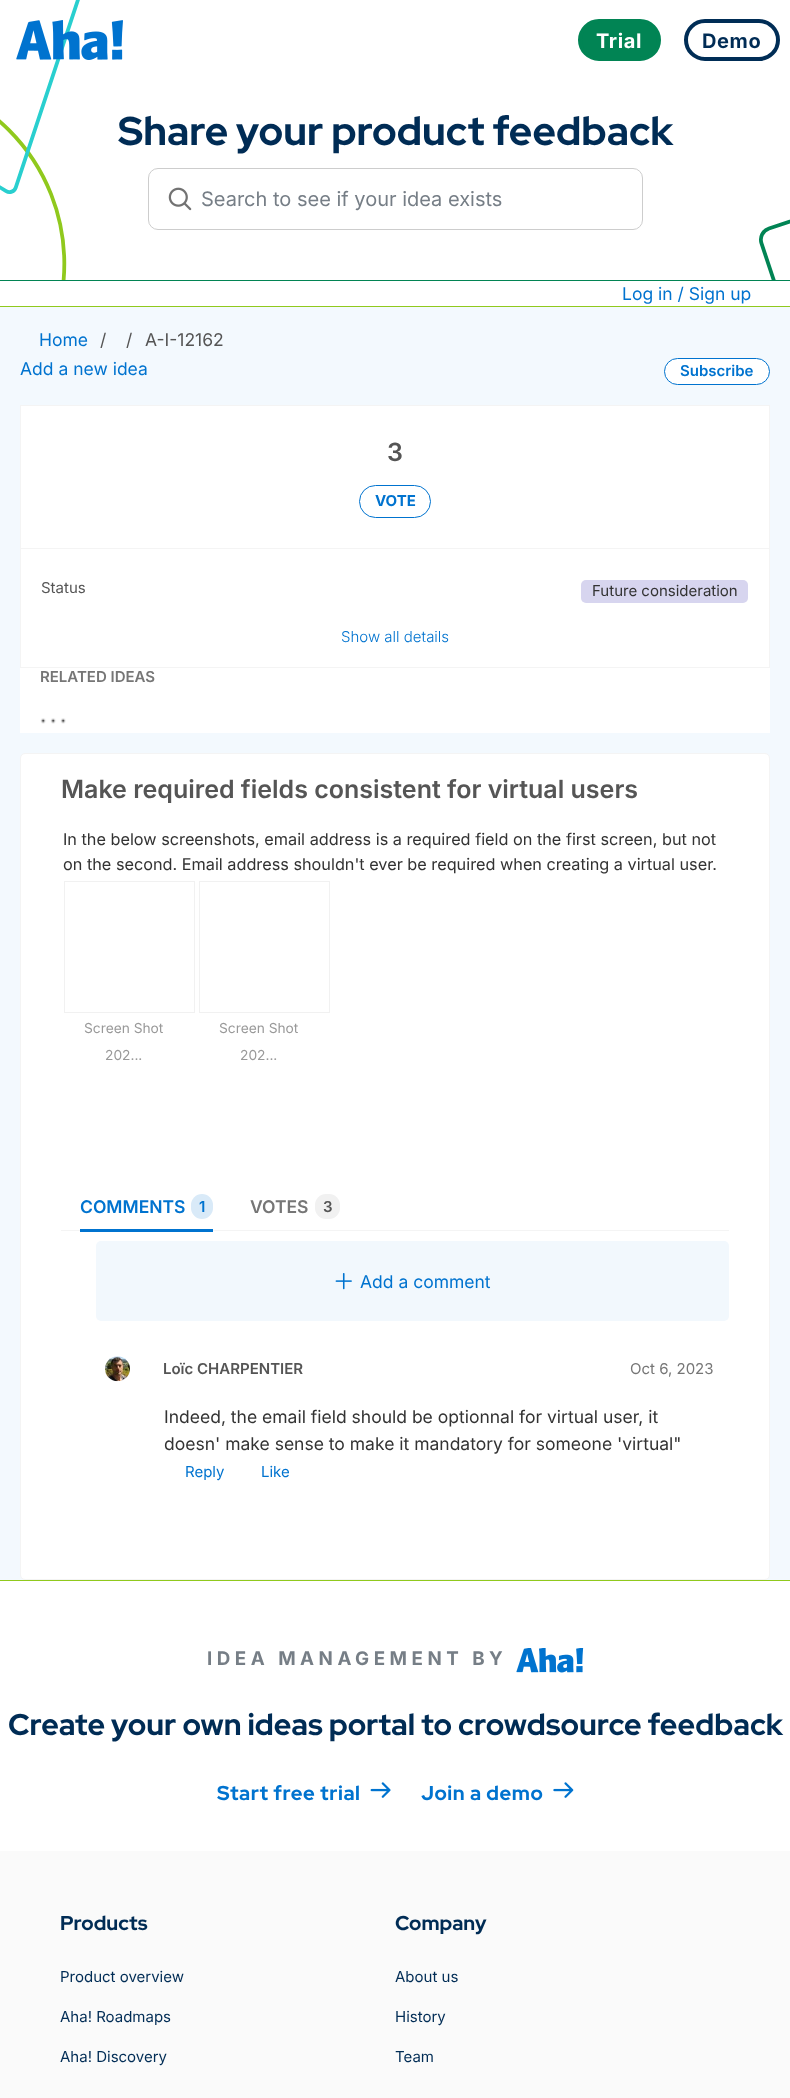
<svg xmlns="http://www.w3.org/2000/svg" width="790" height="2098" viewBox="0 0 790 2098">
  <rect width="100%" height="100%" fill="rgb(243,249,254)"/>
  <rect x="0" y="0" width="790" height="280" fill="rgb(255,255,255)"/>
  <image x="0" y="0" width="790" height="280" href="pic2.png"/>
  <image x="16" y="20" width="107" height="40" href="pic1.png"/>
  <rect x="580" y="21" width="79" height="38" rx="19" fill="rgb(1,132,84)" stroke="rgb(1,132,84)" stroke-width="4"/>
  <text x="596" y="48" font-family="Inter" font-size="20" font-weight="bold" letter-spacing="0.6" fill="rgb(255,255,255)">Trial</text>
  <rect x="686" y="21" width="92" height="38" rx="19" fill="none" stroke="rgb(0,45,86)" stroke-width="4"/>
  <text x="702" y="48" font-family="Inter" font-size="20" font-weight="bold" letter-spacing="0.6" fill="rgb(0,44,85)">Demo</text>
  <text x="118" y="145" font-family="Red Hat Display" font-size="40" font-weight="800" fill="rgb(0,44,85)">Share your product feedback</text>
  <rect x="148.5" y="168.5" width="494" height="61" rx="9.5" fill="none" stroke="rgb(205,205,205)"/>
  <image x="168" y="187" width="24" height="24" href="pic3.png"/>
  <text x="201" y="206" font-family="Inter" font-size="20" fill="rgb(118,126,134)">Search to see if your idea exists</text>
  <rect x="0" y="281" width="790" height="25" fill="rgb(255,255,255)"/>
  <rect x="0" y="280" width="790" height="1" fill="rgb(1,132,84)"/>
  <rect x="0" y="306" width="790" height="1" fill="rgb(144,201,29)"/>
  <g font-family="Inter" font-size="17.5" fill="rgb(0,115,207)">
    <text x="622" y="300">Log in / Sign up</text>
    <text x="39" y="346">Home</text>
  </g>
  <g font-family="Inter" font-size="17.5" fill="rgb(85,85,85)">
    <text x="100" y="346">/</text>
    <text x="126" y="346">/</text>
    <text x="145" y="346">A-I-12162</text>
  </g>
  <text x="20" y="375" font-family="Inter" font-size="17.5" fill="rgb(0,115,207)">Add a new idea</text>
  <rect x="664.5" y="358.5" width="105" height="26" rx="13" fill="rgb(255,255,255)" stroke="rgb(0,115,207)"/>
  <text x="680" y="376" font-family="Inter" font-size="15" font-weight="600" fill="rgb(0,115,207)">Subscribe</text>
  <rect x="20" y="406" width="750" height="327" fill="rgb(255,255,255)"/>
  <rect x="20.5" y="405.5" width="749" height="262" fill="none" stroke="rgb(244,244,244)"/>
  <text x="387" y="461" font-family="Inter" font-size="25" font-weight="600" fill="rgb(85,85,85)">3</text>
  <rect x="359.5" y="485.5" width="71" height="32" rx="16" fill="none" stroke="rgb(0,115,207)"/>
  <text x="375" y="506" font-family="Inter" font-size="15" font-weight="bold" fill="rgb(0,115,207)">VOTE</text>
  <rect x="21" y="548" width="748" height="1" fill="rgb(244,244,244)"/>
  <text x="41" y="593" font-family="Inter" font-size="15" fill="rgb(85,85,85)">Status</text>
  <rect x="581" y="580" width="167" height="23" rx="5" fill="rgb(215,213,239)"/>
  <text x="592" y="596" font-family="Inter" font-size="15" fill="rgb(51,51,51)">Future consideration</text>
  <text x="341" y="642" font-family="Inter" font-size="15" font-weight="300" fill="rgb(0,115,207)">Show all details</text>
  <text x="40" y="682" font-family="Inter" font-size="15" font-weight="600" fill="rgb(118,118,118)">RELATED IDEAS</text>
  <image x="40" y="718" width="26" height="6" href="pic4.png"/>
  <rect x="20.5" y="753.5" width="749" height="826" rx="4.5" fill="rgb(255,255,255)" stroke="rgb(244,244,244)"/>
  <text x="61" y="798" font-family="Inter" font-size="25" font-weight="600" fill="rgb(85,85,85)">Make required fields consistent for virtual users</text>
  <g font-family="Inter" font-size="16.25" fill="rgb(51,51,51)">
    <text>
      <tspan x="63" y="845">In the below screenshots, email address is a required field on the first screen, but not</tspan>
      <tspan x="63" y="870">on the second. Email address shouldn't ever be required when creating a virtual user.</tspan>
    </text>
  </g>
  <rect x="64.5" y="881.5" width="130" height="131" fill="none" stroke="rgb(241,241,241)"/>
  <g font-family="Inter" font-size="13.75" fill="rgb(153,153,153)">
    <text x="84" y="1033">Screen Shot</text>
    <text x="105" y="1060">202...</text>
  </g>
  <rect x="199.5" y="881.5" width="130" height="131" fill="none" stroke="rgb(241,241,241)"/>
  <g font-family="Inter" font-size="13.75" fill="rgb(153,153,153)">
    <text x="219" y="1033">Screen Shot</text>
    <text x="240" y="1060">202...</text>
  </g>
  <rect x="61" y="1230" width="668" height="1" fill="rgb(244,244,244)"/>
  <rect x="80" y="1229" width="133" height="3" fill="rgb(0,115,207)"/>
  <text x="80" y="1213" font-family="Inter" font-size="17.5" font-weight="600" fill="rgb(0,115,207)">COMMENTS</text>
  <rect x="191" y="1194" width="22" height="25" rx="11" fill="rgb(217,234,248)"/>
  <text x="199" y="1212" font-family="Inter" font-size="15" font-weight="600" fill="rgb(0,115,207)">1</text>
  <text x="250" y="1213" font-family="Inter" font-size="17.5" font-weight="600" fill="rgb(118,118,118)">VOTES</text>
  <rect x="315" y="1194" width="25" height="25" rx="11" fill="rgb(241,241,241)"/>
  <text x="323" y="1212" font-family="Inter" font-size="15" font-weight="600" fill="rgb(85,85,85)">3</text>
  <rect x="96" y="1241" width="633" height="80" rx="5" fill="rgb(242,248,253)"/>
  <image x="335" y="1273" width="17" height="17" href="pic5.png"/>
  <text x="360" y="1288" font-family="Inter" font-size="17.5" fill="rgb(0,115,207)">Add a comment</text>
  <image x="105" y="1356" width="25" height="26" href="pic6.png"/>
  <text x="163" y="1374" font-family="Inter" font-size="15" font-weight="600" fill="rgb(85,85,85)">Loïc CHARPENTIER</text>
  <text x="630" y="1374" font-family="Inter" font-size="15" fill="rgb(118,118,118)">Oct 6, 2023</text>
  <g font-family="Inter" font-size="17.5" fill="rgb(51,51,51)">
    <text>
      <tspan x="164" y="1423">Indeed, the email field should be optionnal for virtual user, it</tspan>
      <tspan x="164" y="1450">doesn' make sense to make it mandatory for someone 'virtual"</tspan>
    </text>
  </g>
  <g font-family="Inter" font-size="15" fill="rgb(0,115,207)">
    <text x="185" y="1477">Reply</text>
    <text x="261" y="1477">Like</text>
  </g>
  <rect x="0" y="1581" width="790" height="270" fill="rgb(255,255,255)"/>
  <rect x="0" y="1580" width="790" height="1" fill="rgb(144,201,29)"/>
  <text x="207" y="1665" font-family="Inter" font-size="18.75" font-weight="bold" letter-spacing="4.5" fill="rgb(118,126,134)">IDEA MANAGEMENT BY</text>
  <image x="516" y="1648" width="68" height="25" href="pic7.png"/>
  <text x="8" y="1735" font-family="Red Hat Display" font-size="30" font-weight="bold" fill="rgb(0,44,85)">Create your own ideas portal to crowdsource feedback</text>
  <text x="217" y="1800" font-family="Red Hat Display" font-size="20" font-weight="bold" letter-spacing="0.6" fill="rgb(0,115,207)">Start free trial</text>
  <image x="370" y="1782" width="21" height="16" href="pic8.png"/>
  <text x="421" y="1800" font-family="Red Hat Display" font-size="20" font-weight="bold" letter-spacing="0.6" fill="rgb(0,115,207)">Join a demo</text>
  <image x="553" y="1782" width="21" height="16" href="pic9.png"/>
  <rect x="0" y="1851" width="790" height="247" fill="rgb(250,250,250)"/>
  <text x="60" y="1930" font-family="Red Hat Display" font-size="20" font-weight="800" fill="rgb(0,44,85)">Products</text>
  <g font-family="Inter" font-size="15" fill="rgb(0,44,85)">
    <text x="60" y="1982">Product overview</text>
    <text x="60" y="2022">Aha! Roadmaps</text>
    <text x="60" y="2062">Aha! Discovery</text>
  </g>
  <text x="395" y="1930" font-family="Red Hat Display" font-size="20" font-weight="800" fill="rgb(0,44,85)">Company</text>
  <g font-family="Inter" font-size="15" fill="rgb(0,44,85)">
    <text x="395" y="1982">About us</text>
    <text x="395" y="2022">History</text>
    <text x="395" y="2062">Team</text>
  </g>
</svg>
